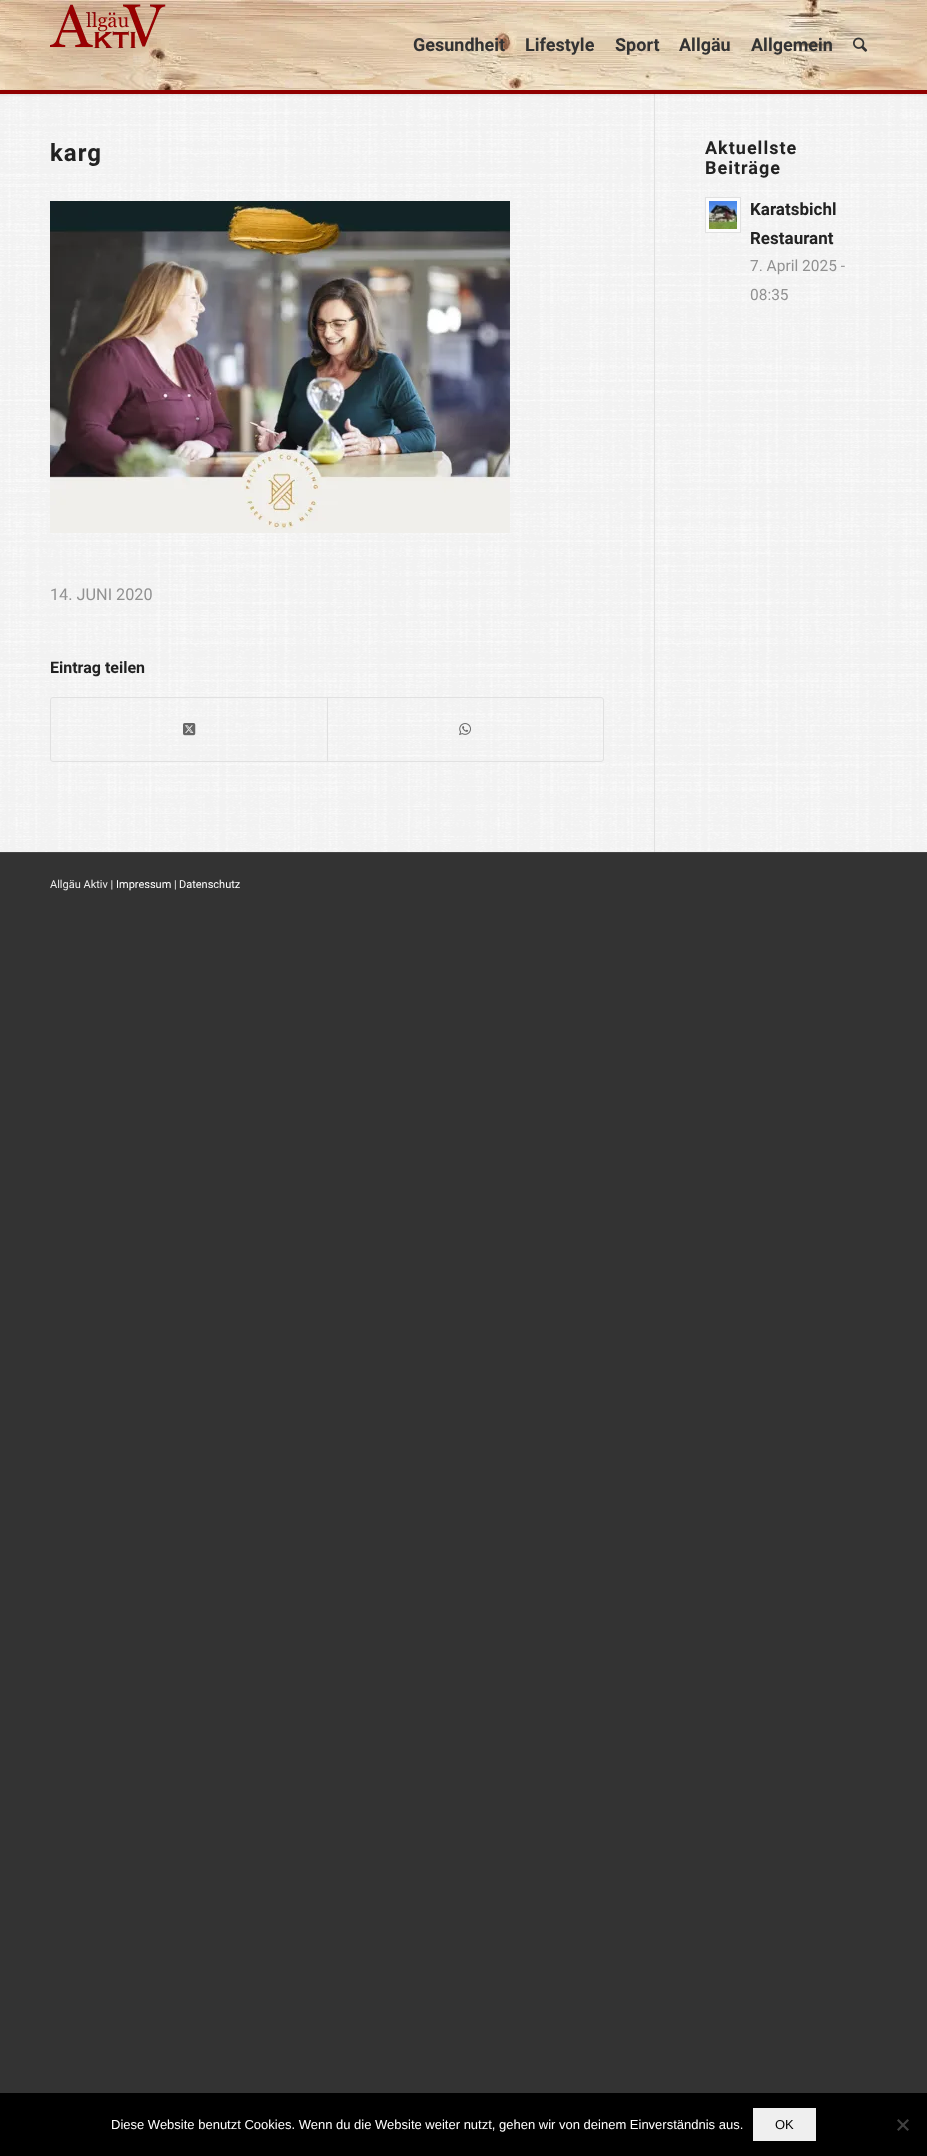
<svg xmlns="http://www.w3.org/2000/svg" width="927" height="2156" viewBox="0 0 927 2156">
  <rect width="100%" height="100%" fill="rgb(51,51,51)"/>
  <rect x="0" y="94" width="927" height="758" fill="rgb(255,255,255)"/>
  <image x="0" y="94" width="927" height="758" href="pic4.png"/>
  <rect x="654" y="88" width="1" height="764" fill="rgb(225,225,225)"/>
  <rect x="-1" y="-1" width="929" height="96" fill="rgba(0,0,0,0.1)" filter="blur(1px)"/>
  <rect x="0" y="90" width="927" height="4" fill="rgb(144,0,0)"/>
  <image x="0" y="0" width="927" height="90" href="pic1.png"/>
  <image x="50" y="4" width="116" height="44" href="pic2.png"/>
  <g font-family="Roboto" font-size="18" font-weight="bold" fill="rgb(51,51,51)">
    <text x="413" y="51">Gesundheit</text>
    <text x="525" y="51">Lifestyle</text>
    <text x="615" y="51">Sport</text>
    <text x="679" y="51">Allgäu</text>
    <text x="751" y="51">Allgemein</text>
  </g>
  <image x="853" y="37" width="15" height="15" href="pic3.png"/>
  <text x="50" y="161" font-family="Roboto" font-size="24" font-weight="bold" letter-spacing="1" fill="rgb(34,34,34)">karg</text>
  <image x="50" y="201" width="460" height="332" href="pic5.png"/>
  <text x="50" y="600" font-family="Roboto" font-size="16.25" fill="rgb(145,145,145)">14. JUNI 2020</text>
  <text x="50" y="673" font-family="Roboto" font-size="16" font-weight="bold" fill="rgb(34,34,34)">Eintrag teilen</text>
  <rect x="50.5" y="697.5" width="553" height="64" rx="2.5" fill="none" stroke="rgb(225,225,225)"/>
  <image x="183" y="723" width="13" height="13" href="pic6.png"/>
  <rect x="327" y="698" width="1" height="63" fill="rgb(225,225,225)"/>
  <image x="459" y="723" width="12" height="13" href="pic7.png"/>
  <g font-family="Roboto" font-size="18" font-weight="bold" letter-spacing="1" fill="rgb(34,34,34)">
    <text>
      <tspan x="705" y="154">Aktuellste</tspan>
      <tspan x="705" y="174">Beiträge</tspan>
    </text>
  </g>
  <rect x="705.5" y="197.5" width="35" height="35" fill="rgb(252,252,252)" stroke="rgb(225,225,225)"/>
  <image x="709" y="201" width="28" height="28" href="pic8.png"/>
  <g font-family="Roboto" font-size="17" font-weight="bold" fill="rgb(34,34,34)">
    <text>
      <tspan x="750" y="215">Karatsbichl</tspan>
      <tspan x="750" y="244">Restaurant</tspan>
    </text>
  </g>
  <g font-family="Roboto" font-size="15.5" fill="rgb(145,145,145)">
    <text>
      <tspan x="750" y="271">7. April 2025 -</tspan>
      <tspan x="750" y="300">08:35</tspan>
    </text>
  </g>
  <rect x="0" y="852" width="927" height="1" fill="rgb(68,68,68)"/>
  <text x="50" y="888" font-family="Roboto" font-size="11" fill="rgb(238,238,238)">Allgäu Aktiv |</text>
  <text x="116" y="888" font-family="Roboto" font-size="11" fill="rgb(255,255,255)">Impressum</text>
  <text x="174" y="888" font-family="Roboto" font-size="11" fill="rgb(238,238,238)">|</text>
  <text x="179" y="888" font-family="Roboto" font-size="11" fill="rgb(255,255,255)">Datenschutz</text>
  <rect x="0" y="2093" width="927" height="63" fill="rgb(0,0,0)"/>
  <text x="111" y="2129" font-family="Liberation Sans" font-size="13" fill="rgb(255,255,255)">Diese Website benutzt Cookies. Wenn du die Website weiter nutzt, gehen wir von deinem Einverständnis aus.</text>
  <rect x="753" y="2108" width="63" height="33" fill="rgb(239,239,239)"/>
  <text x="775" y="2129" font-family="Liberation Sans" font-size="13" fill="rgb(0,0,0)">OK</text>
  <path d="M907.5 2119L909 2120.5L898.5 2131L897 2129.5Z" fill="rgb(64,64,64)"/>
  <path d="M897 2120.5L898.5 2119L909 2129.5L907.5 2131Z" fill="rgb(64,64,64)"/>
</svg>
